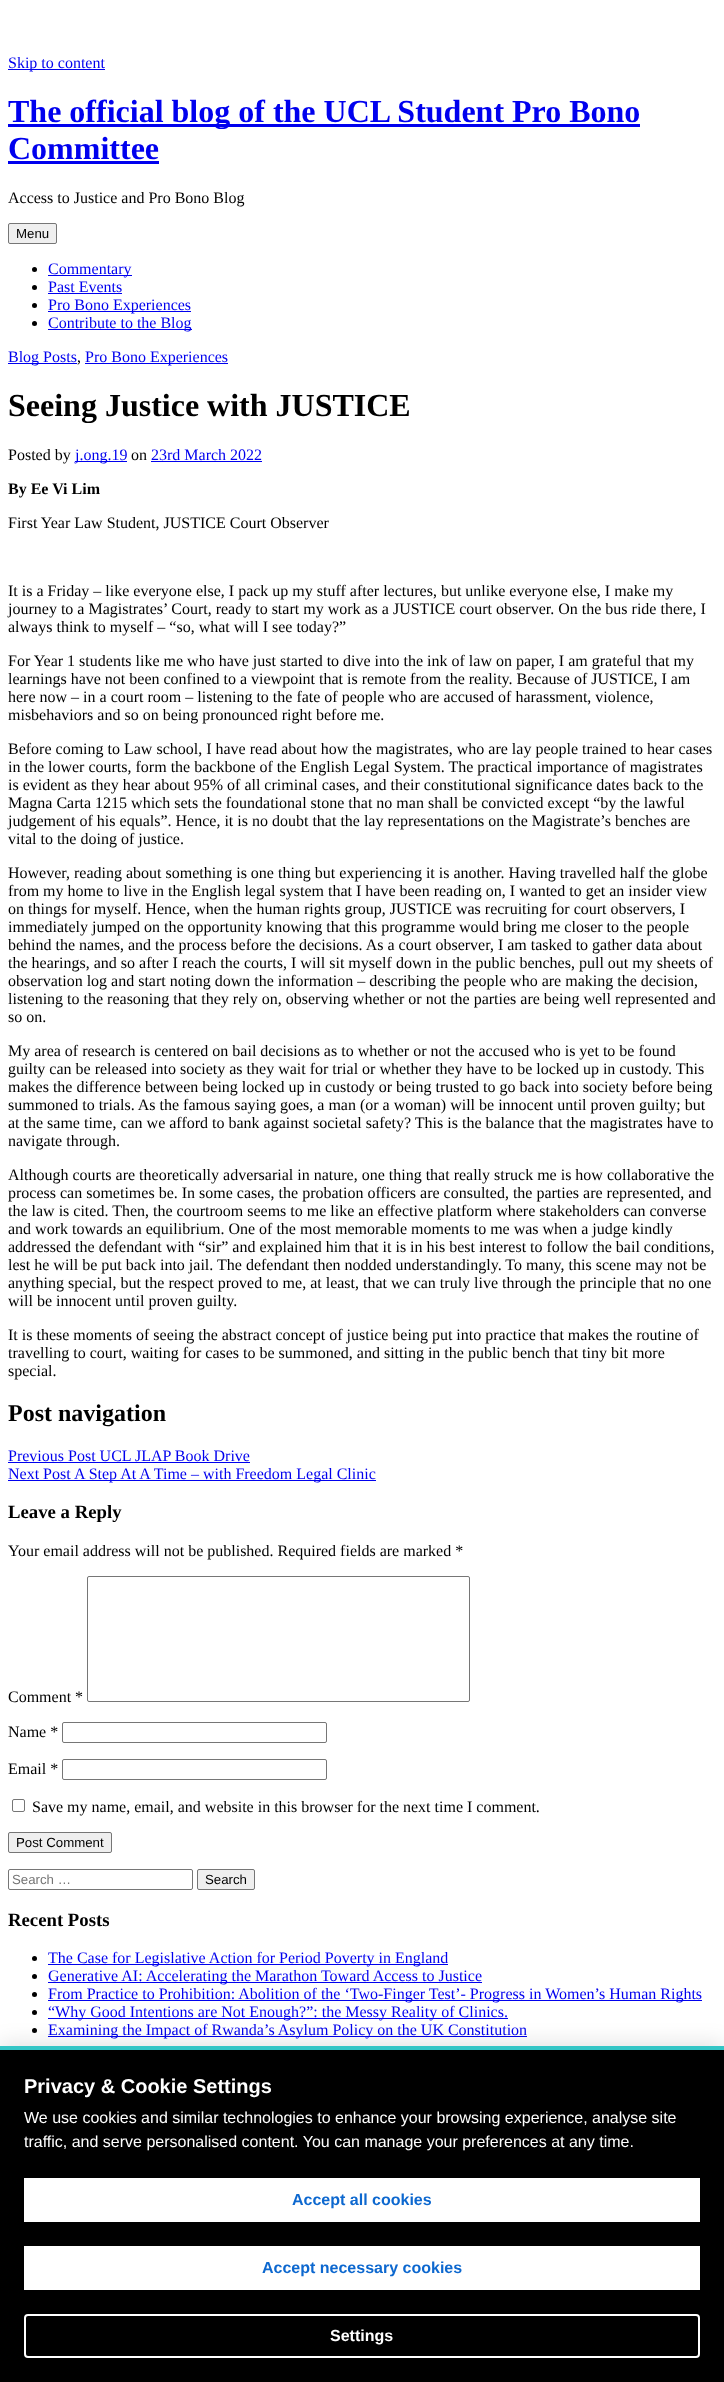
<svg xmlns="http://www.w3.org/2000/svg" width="724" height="2382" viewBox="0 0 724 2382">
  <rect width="100%" height="100%" fill="rgb(255,255,255)"/>
  <rect x="8" y="69" width="97" height="1" fill="rgb(0,0,238)"/>
  <text x="8" y="68" font-family="Liberation Serif" font-size="16" fill="rgb(0,0,238)">Skip to content</text>
  <rect x="8" y="124" width="632" height="3" fill="rgb(0,0,238)"/>
  <g font-family="Liberation Serif" font-size="32" font-weight="bold" fill="rgb(0,0,238)">
    <text>
      <tspan x="8" y="122">The official blog of the UCL Student Pro Bono</tspan>
      <tspan x="8" y="159">Committee</tspan>
    </text>
  </g>
  <rect x="8" y="161" width="151" height="3" fill="rgb(0,0,238)"/>
  <text x="8" y="203" font-family="Liberation Serif" font-size="16" fill="rgb(0,0,0)">Access to Justice and Pro Bono Blog</text>
  <rect x="8.5" y="223.5" width="48" height="20" rx="1.5" fill="rgb(239,239,239)" stroke="rgb(118,118,118)"/>
  <text x="16" y="238" font-family="Liberation Sans" font-size="13.25" fill="rgb(0,0,0)">Menu</text>
  <circle cx="34.5" cy="269.5" r="2.5" fill="rgb(0,0,0)"/>
  <rect x="48" y="275" width="84" height="1" fill="rgb(0,0,238)"/>
  <text x="48" y="274" font-family="Liberation Serif" font-size="16" fill="rgb(0,0,238)">Commentary</text>
  <circle cx="34.5" cy="287.5" r="2.5" fill="rgb(0,0,0)"/>
  <text x="48" y="292" font-family="Liberation Serif" font-size="16" fill="rgb(0,0,238)">Past Events</text>
  <rect x="48" y="293" width="74" height="1" fill="rgb(0,0,238)"/>
  <circle cx="34.5" cy="305.5" r="2.5" fill="rgb(0,0,0)"/>
  <rect x="48" y="311" width="143" height="1" fill="rgb(0,0,238)"/>
  <text x="48" y="310" font-family="Liberation Serif" font-size="16" fill="rgb(0,0,238)">Pro Bono Experiences</text>
  <circle cx="34.5" cy="323.5" r="2.5" fill="rgb(0,0,0)"/>
  <rect x="48" y="329" width="144" height="1" fill="rgb(0,0,238)"/>
  <text x="48" y="328" font-family="Liberation Serif" font-size="16" fill="rgb(0,0,238)">Contribute to the Blog</text>
  <rect x="8" y="363" width="69" height="1" fill="rgb(0,0,238)"/>
  <text x="8" y="362" font-family="Liberation Serif" font-size="16" fill="rgb(0,0,238)">Blog Posts</text>
  <text x="77" y="362" font-family="Liberation Serif" font-size="16" fill="rgb(0,0,0)">,</text>
  <rect x="85" y="363" width="143" height="1" fill="rgb(0,0,238)"/>
  <text x="85" y="362" font-family="Liberation Serif" font-size="16" fill="rgb(0,0,238)">Pro Bono Experiences</text>
  <text x="8" y="416" font-family="Liberation Serif" font-size="32" font-weight="bold" fill="rgb(0,0,0)">Seeing Justice with JUSTICE</text>
  <text x="8" y="460" font-family="Liberation Serif" font-size="16" fill="rgb(0,0,0)">Posted by</text>
  <rect x="75" y="461" width="52" height="1" fill="rgb(0,0,238)"/>
  <text x="75" y="460" font-family="Liberation Serif" font-size="16" fill="rgb(0,0,238)">j.ong.19</text>
  <text x="131" y="460" font-family="Liberation Serif" font-size="16" fill="rgb(0,0,0)">on</text>
  <text x="151" y="460" font-family="Liberation Serif" font-size="16" fill="rgb(0,0,238)">23rd March 2022</text>
  <rect x="151" y="461" width="111" height="1" fill="rgb(0,0,238)"/>
  <text x="8" y="494" font-family="Liberation Serif" font-size="16" font-weight="bold" fill="rgb(0,0,0)">By Ee Vi Lim</text>
  <g font-family="Liberation Serif" font-size="16" fill="rgb(0,0,0)">
    <text x="8" y="528">First Year Law Student, JUSTICE Court Observer</text>
    <text>
      <tspan x="8" y="596">It is a Friday – like everyone else, I pack up my stuff after lectures, but unlike everyone else, I make my</tspan>
      <tspan x="8" y="614">journey to a Magistrates’ Court, ready to start my work as a JUSTICE court observer. On the bus ride there, I</tspan>
      <tspan x="8" y="632">always think to myself – “so, what will I see today?”</tspan>
    </text>
    <text>
      <tspan x="8" y="666">For Year 1 students like me who have just started to dive into the ink of law on paper, I am grateful that my</tspan>
      <tspan x="8" y="684">learnings have not been confined to a viewpoint that is remote from the reality. Because of JUSTICE, I am</tspan>
      <tspan x="8" y="702">here now – in a court room – listening to the fate of people who are accused of harassment, violence,</tspan>
      <tspan x="8" y="720">misbehaviors and so on being pronounced right before me.</tspan>
    </text>
    <text>
      <tspan x="8" y="754">Before coming to Law school, I have read about how the magistrates, who are lay people trained to hear cases</tspan>
      <tspan x="8" y="772">in the lower courts, form the backbone of the English Legal System. The practical importance of magistrates</tspan>
      <tspan x="8" y="790">is evident as they hear about 95% of all criminal cases, and their constitutional significance dates back to the</tspan>
      <tspan x="8" y="808">Magna Carta 1215 which sets the foundational stone that no man shall be convicted except “by the lawful</tspan>
      <tspan x="8" y="826">judgement of his equals”. Hence, it is no doubt that the lay representations on the Magistrate’s benches are</tspan>
      <tspan x="8" y="844">vital to the doing of justice.</tspan>
    </text>
    <text>
      <tspan x="8" y="878">However, reading about something is one thing but experiencing it is another. Having travelled half the globe</tspan>
      <tspan x="8" y="896">from my home to live in the English legal system that I have been reading on, I wanted to get an insider view</tspan>
      <tspan x="8" y="914">on things for myself. Hence, when the human rights group, JUSTICE was recruiting for court observers, I</tspan>
      <tspan x="8" y="932">immediately jumped on the opportunity knowing that this programme would bring me closer to the people</tspan>
      <tspan x="8" y="950">behind the names, and the process before the decisions. As a court observer, I am tasked to gather data about</tspan>
      <tspan x="8" y="968">the hearings, and so after I reach the courts, I will sit myself down in the public benches, pull out my sheets of</tspan>
      <tspan x="8" y="986">observation log and start noting down the information – describing the people who are making the decision,</tspan>
      <tspan x="8" y="1004">listening to the reasoning that they rely on, observing whether or not the parties are being well represented and</tspan>
      <tspan x="8" y="1022">so on.</tspan>
    </text>
    <text>
      <tspan x="8" y="1056">My area of research is centered on bail decisions as to whether or not the accused who is yet to be found</tspan>
      <tspan x="8" y="1074">guilty can be released into society as they wait for trial or whether they have to be locked up in custody. This</tspan>
      <tspan x="8" y="1092">makes the difference between being locked up in custody or being trusted to go back into society before being</tspan>
      <tspan x="8" y="1110">summoned to trials. As the famous saying goes, a man (or a woman) will be innocent until proven guilty; but</tspan>
      <tspan x="8" y="1128">at the same time, can we afford to bank against societal safety? This is the balance that the magistrates have to</tspan>
      <tspan x="8" y="1146">navigate through.</tspan>
    </text>
    <text>
      <tspan x="8" y="1180">Although courts are theoretically adversarial in nature, one thing that really struck me is how collaborative the</tspan>
      <tspan x="8" y="1198">process can sometimes be. In some cases, the probation officers are consulted, the parties are represented, and</tspan>
      <tspan x="8" y="1216">the law is cited. Then, the courtroom seems to me like an effective platform where stakeholders can converse</tspan>
      <tspan x="8" y="1234">and work towards an equilibrium. One of the most memorable moments to me was when a judge kindly</tspan>
      <tspan x="8" y="1252">addressed the defendant with “sir” and explained him that it is in his best interest to follow the bail conditions,</tspan>
      <tspan x="8" y="1270">lest he will be put back into jail. The defendant then nodded understandingly. To many, this scene may not be</tspan>
      <tspan x="8" y="1288">anything special, but the respect proved to me, at least, that we can truly live through the principle that no one</tspan>
      <tspan x="8" y="1306">will be innocent until proven guilty.</tspan>
    </text>
    <text>
      <tspan x="8" y="1340">It is these moments of seeing the abstract concept of justice being put into practice that makes the routine of</tspan>
      <tspan x="8" y="1358">travelling to court, waiting for cases to be summoned, and sitting in the public bench that tiny bit more</tspan>
      <tspan x="8" y="1376">special.</tspan>
    </text>
  </g>
  <text x="8" y="1421" font-family="Liberation Serif" font-size="24" font-weight="bold" fill="rgb(0,0,0)">Post navigation</text>
  <text x="8" y="1461" font-family="Liberation Serif" font-size="16" fill="rgb(0,0,238)">Previous Post UCL JLAP Book Drive</text>
  <rect x="8" y="1462" width="242" height="1" fill="rgb(0,0,238)"/>
  <text x="8" y="1479" font-family="Liberation Serif" font-size="16" fill="rgb(0,0,238)">Next Post</text>
  <rect x="8" y="1480" width="368" height="1" fill="rgb(0,0,238)"/>
  <text x="74" y="1479" font-family="Liberation Serif" font-size="16" fill="rgb(0,0,238)">A Step At A Time – with Freedom Legal Clinic</text>
  <text x="8" y="1518" font-family="Liberation Serif" font-size="18.75" font-weight="bold" fill="rgb(0,0,0)">Leave a Reply</text>
  <g font-family="Liberation Serif" font-size="16" fill="rgb(0,0,0)">
    <text x="8" y="1556">Your email address will not be published. Required fields are marked *</text>
    <text x="8" y="1702">Comment *</text>
  </g>
  <rect x="87.5" y="1576.5" width="382" height="125" rx="1.5" fill="none" stroke="rgb(118,118,118)"/>
  <text x="8" y="1737" font-family="Liberation Serif" font-size="16" fill="rgb(0,0,0)">Name *</text>
  <rect x="62.5" y="1722.5" width="264" height="20" rx="1.5" fill="none" stroke="rgb(118,118,118)"/>
  <text x="8" y="1774" font-family="Liberation Serif" font-size="16" fill="rgb(0,0,0)">Email *</text>
  <rect x="62.5" y="1759.5" width="264" height="20" rx="1.5" fill="none" stroke="rgb(118,118,118)"/>
  <rect x="12.5" y="1799.5" width="12" height="12" rx="1.5" fill="none" stroke="rgb(118,118,118)"/>
  <text x="32" y="1812" font-family="Liberation Serif" font-size="16" fill="rgb(0,0,0)">Save my name, email, and website in this browser for the next time I comment.</text>
  <rect x="8.5" y="1832.5" width="103" height="20" rx="1.5" fill="rgb(239,239,239)" stroke="rgb(118,118,118)"/>
  <text x="16" y="1847" font-family="Liberation Sans" font-size="13.25" fill="rgb(0,0,0)">Post Comment</text>
  <rect x="8.5" y="1869.5" width="184" height="20" rx="1.5" fill="none" stroke="rgb(118,118,118)"/>
  <text x="12" y="1884" font-family="Liberation Sans" font-size="13.25" fill="rgb(117,117,117)">Search …</text>
  <rect x="197.5" y="1869.5" width="57" height="20" rx="1.5" fill="rgb(239,239,239)" stroke="rgb(118,118,118)"/>
  <text x="205" y="1884" font-family="Liberation Sans" font-size="13.25" fill="rgb(0,0,0)">Search</text>
  <text x="8" y="1926" font-family="Liberation Serif" font-size="18.75" font-weight="bold" fill="rgb(0,0,0)">Recent Posts</text>
  <circle cx="34.5" cy="1958.5" r="2.5" fill="rgb(0,0,0)"/>
  <rect x="48" y="1964" width="400" height="1" fill="rgb(0,0,238)"/>
  <text x="48" y="1963" font-family="Liberation Serif" font-size="16" fill="rgb(0,0,238)">The Case for Legislative Action for Period Poverty in England</text>
  <circle cx="34.5" cy="1976.5" r="2.5" fill="rgb(0,0,0)"/>
  <rect x="48" y="1982" width="434" height="1" fill="rgb(0,0,238)"/>
  <text x="48" y="1981" font-family="Liberation Serif" font-size="16" fill="rgb(0,0,238)">Generative AI: Accelerating the Marathon Toward Access to Justice</text>
  <circle cx="34.5" cy="1994.5" r="2.5" fill="rgb(0,0,0)"/>
  <rect x="48" y="2000" width="654" height="1" fill="rgb(0,0,238)"/>
  <text x="48" y="1999" font-family="Liberation Serif" font-size="16" fill="rgb(0,0,238)">From Practice to Prohibition: Abolition of the ‘Two-Finger Test’- Progress in Women’s Human Rights</text>
  <circle cx="34.5" cy="2012.5" r="2.5" fill="rgb(0,0,0)"/>
  <rect x="48" y="2018" width="460" height="1" fill="rgb(0,0,238)"/>
  <text x="48" y="2017" font-family="Liberation Serif" font-size="16" fill="rgb(0,0,238)">“Why Good Intentions are Not Enough?”: the Messy Reality of Clinics.</text>
  <circle cx="34.5" cy="2030.5" r="2.5" fill="rgb(0,0,0)"/>
  <rect x="48" y="2036" width="479" height="1" fill="rgb(0,0,238)"/>
  <text x="48" y="2035" font-family="Liberation Serif" font-size="16" fill="rgb(0,0,238)">Examining the Impact of Rwanda’s Asylum Policy on the UK Constitution</text>
  <rect x="0" y="2042" width="724" height="336" fill="rgba(0,0,0,0.1)" filter="blur(10px)"/>
  <rect x="0" y="2050" width="724" height="332" fill="rgb(0,0,0)"/>
  <rect x="0" y="2046" width="724" height="4" fill="rgb(52,198,198)"/>
  <text x="24" y="2093" font-family="Liberation Sans" font-size="20" font-weight="bold" fill="rgb(255,255,255)">Privacy &amp; Cookie Settings</text>
  <g font-family="Liberation Sans" font-size="16" fill="rgb(255,255,255)">
    <text>
      <tspan x="24" y="2123">We use cookies and similar technologies to enhance your browsing experience, analyse site</tspan>
      <tspan x="24" y="2147">traffic, and serve personalised content. You can manage your preferences at any time.</tspan>
    </text>
  </g>
  <rect x="24" y="2178" width="676" height="44" fill="rgb(255,255,255)"/>
  <text x="292" y="2205" font-family="Liberation Sans" font-size="16" font-weight="bold" fill="rgb(13,104,207)">Accept all cookies</text>
  <rect x="24" y="2246" width="676" height="44" fill="rgb(255,255,255)"/>
  <text x="262" y="2273" font-family="Liberation Sans" font-size="16" font-weight="bold" fill="rgb(13,104,207)">Accept necessary cookies</text>
  <rect x="25" y="2315" width="674" height="42" rx="3" fill="none" stroke="rgb(255,255,255)" stroke-width="2"/>
  <text x="330" y="2341" font-family="Liberation Sans" font-size="16" font-weight="bold" fill="rgb(255,255,255)">Settings</text>
</svg>
